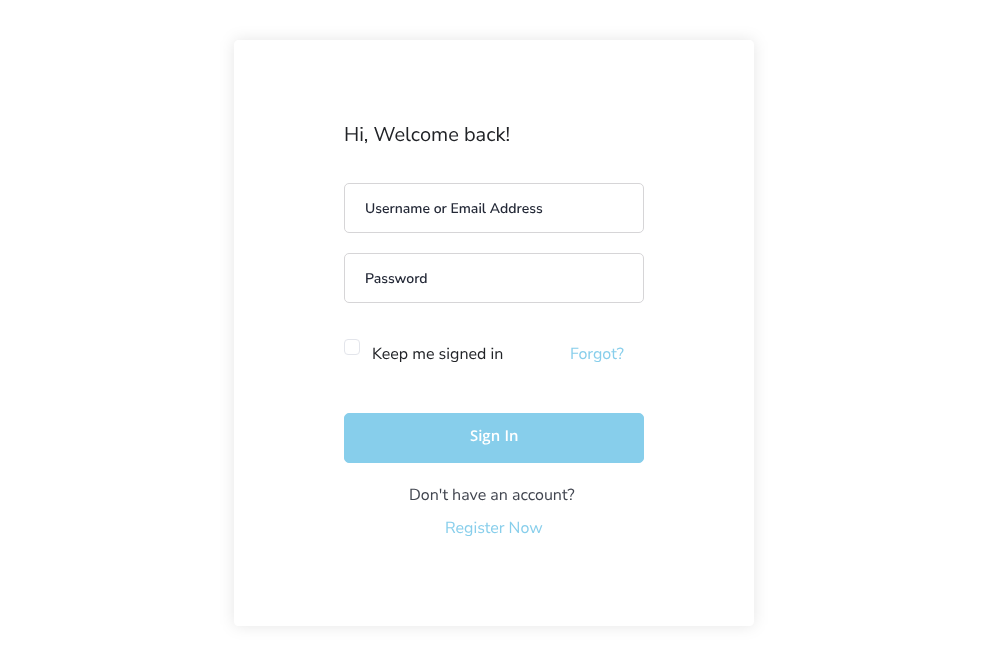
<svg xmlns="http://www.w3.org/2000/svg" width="988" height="654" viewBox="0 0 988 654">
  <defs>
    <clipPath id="clip1"><path d="M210 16H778V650H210ZM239 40H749C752 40 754 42 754 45V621C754 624 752 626 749 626H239C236 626 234 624 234 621V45C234 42 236 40 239 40Z" clip-rule="evenodd"/></clipPath>
  </defs>
  <rect width="100%" height="100%" fill="rgb(255,255,255)"/>
  <g clip-path="url(#clip1)">
    <rect x="234" y="40" width="520" height="586" rx="5" fill="rgba(0,0,0,0.1)" filter="blur(7.5px)"/>
  </g>
  <text x="344" y="141" font-family="Nunito Sans" font-size="20" fill="rgb(33,35,39)">Hi, Welcome back!</text>
  <rect x="344.5" y="183.5" width="299" height="49" rx="4.5" fill="none" stroke="rgb(214,213,215)"/>
  <text x="365" y="213" font-family="Nunito Sans" font-size="14" font-weight="600" fill="rgb(36,41,55)">Username or Email Address</text>
  <rect x="344.5" y="253.5" width="299" height="49" rx="4.5" fill="none" stroke="rgb(214,213,215)"/>
  <text x="365" y="283" font-family="Nunito Sans" font-size="14" font-weight="600" fill="rgb(36,41,55)">Password</text>
  <rect x="344.5" y="339.5" width="15" height="15" rx="3.5" fill="none" stroke="rgb(227,229,235)"/>
  <text x="372" y="359" font-family="Nunito Sans" font-size="16" fill="rgb(33,35,39)">Keep me signed in</text>
  <text x="570" y="359" font-family="Nunito Sans" font-size="16" fill="rgb(135,206,235)">Forgot?</text>
  <rect x="344.5" y="413.5" width="299" height="49" rx="4.5" fill="rgb(135,206,235)" stroke="rgb(135,206,235)"/>
  <text x="470" y="441" font-family="Khula" font-size="16" font-weight="600" fill="rgb(255,255,255)">Sign In</text>
  <text x="409" y="500" font-family="Nunito Sans" font-size="16" fill="rgb(65,69,79)">Don't have an account?</text>
  <text x="445" y="533" font-family="Nunito Sans" font-size="16" fill="rgb(135,206,235)">Register Now</text>
</svg>
